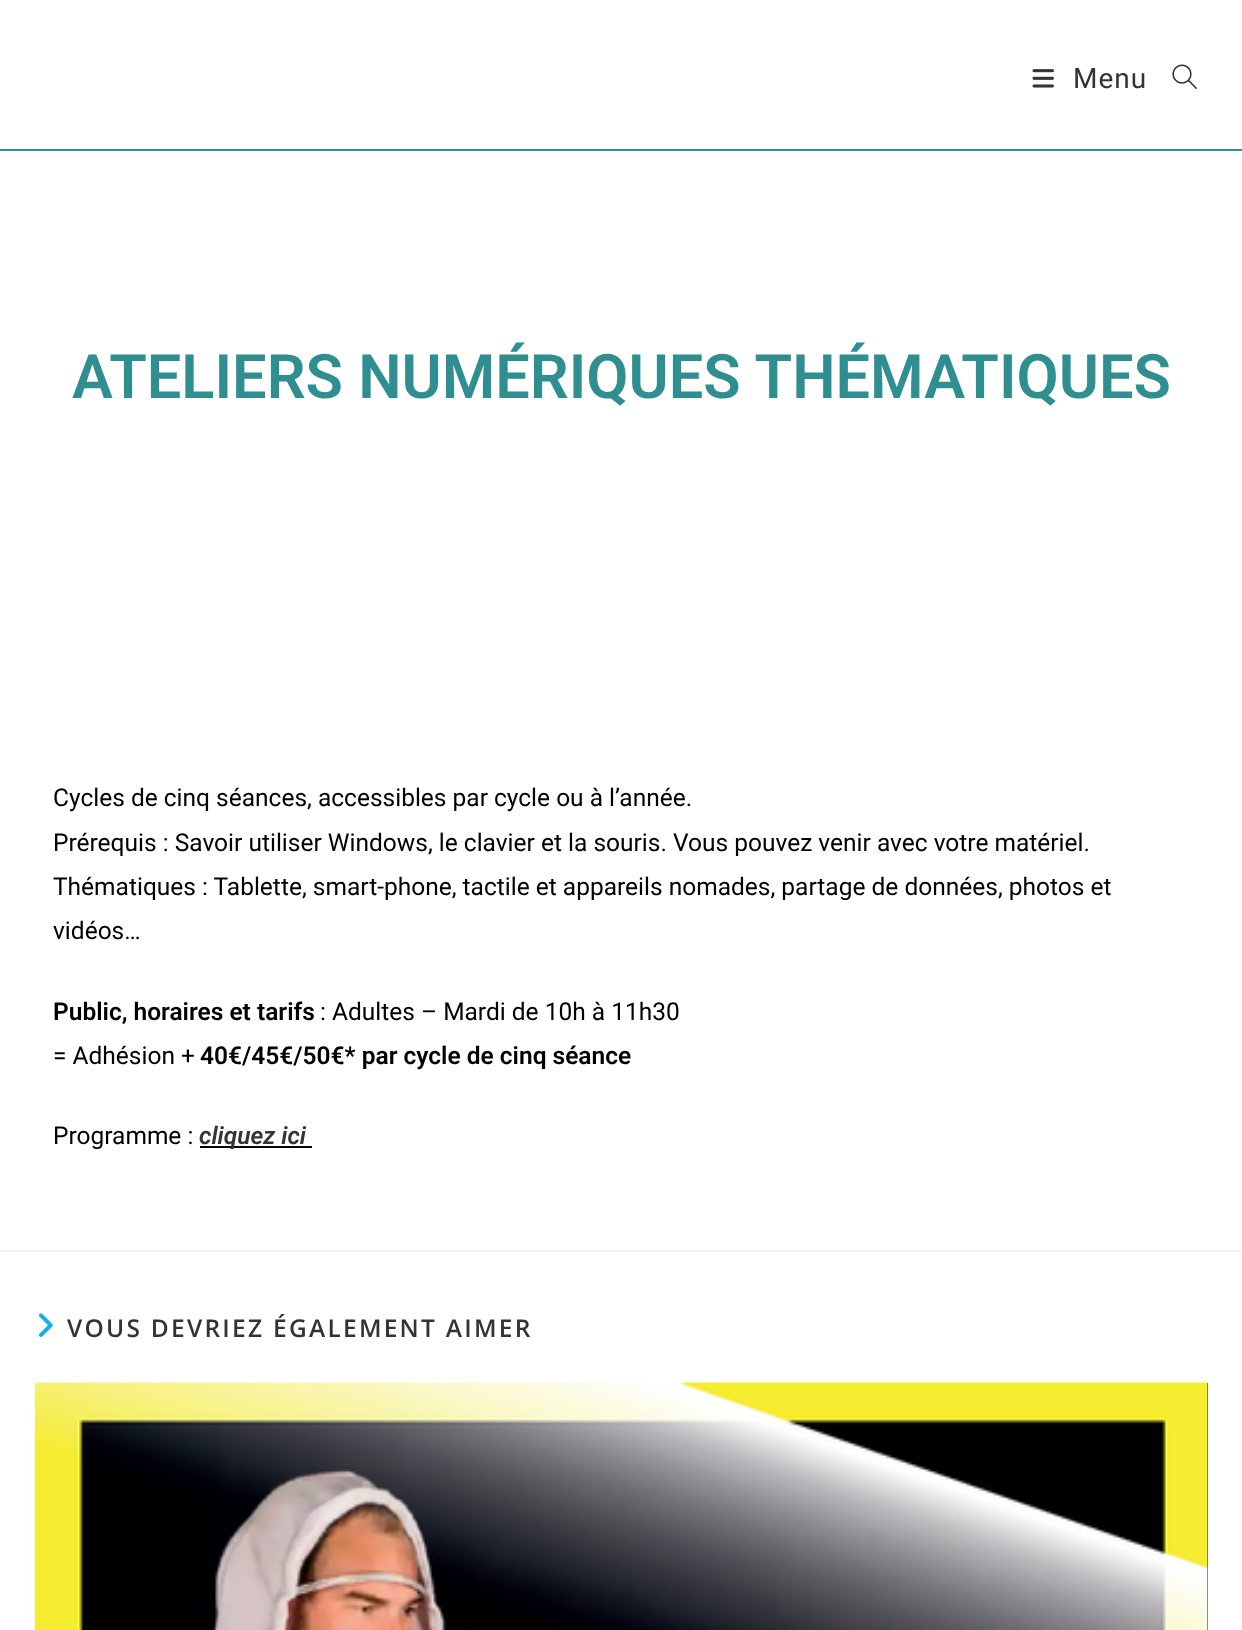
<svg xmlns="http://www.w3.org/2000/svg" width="1242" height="1630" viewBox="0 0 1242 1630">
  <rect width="100%" height="100%" fill="rgb(255,255,255)"/>
  <rect x="0" y="149" width="1242" height="2" fill="rgb(46,142,144)"/>
  <image x="1032" y="69" width="22" height="19" href="pic1.png"/>
  <text x="1073" y="88" font-family="Roboto" font-size="28" letter-spacing="1" fill="rgb(51,51,51)">Menu</text>
  <image x="1172" y="64" width="25" height="25" href="pic2.png"/>
  <text x="72" y="398" font-family="Roboto" font-size="61.25" font-weight="600" fill="rgb(46,142,144)">ATELIERS NUMÉRIQUES THÉMATIQUES</text>
  <g font-family="Roboto" font-size="24.5" fill="rgb(0,0,0)">
    <text>
      <tspan x="53" y="806">Cycles de cinq séances, accessibles par cycle ou à l’année.</tspan>
      <tspan x="53" y="851">Prérequis : Savoir utiliser Windows, le clavier et la souris. Vous pouvez venir avec votre matériel.</tspan>
      <tspan x="53" y="895">Thématiques : Tablette, smart-phone, tactile et appareils nomades, partage de données, photos et</tspan>
      <tspan x="53" y="939">vidéos…</tspan>
    </text>
  </g>
  <text x="53" y="1020" font-family="Roboto" font-size="24.5" font-weight="600" fill="rgb(0,0,0)">Public, horaires et tarifs</text>
  <g font-family="Roboto" font-size="24.5" fill="rgb(0,0,0)">
    <text x="320" y="1020">: Adultes – Mardi de 10h à 11h30</text>
    <text x="53" y="1064">= Adhésion +</text>
  </g>
  <text x="200" y="1064" font-family="Roboto" font-size="24.5" font-weight="600" fill="rgb(0,0,0)">40€/45€/50€* par cycle de cinq séance</text>
  <text x="53" y="1144" font-family="Roboto" font-size="24.5" fill="rgb(0,0,0)">Programme :</text>
  <rect x="200" y="1146" width="112" height="2" fill="rgb(0,0,0)"/>
  <text x="199" y="1144" font-family="Roboto" font-size="24.5" font-weight="600" font-style="italic" fill="rgb(51,51,51)">cliquez ici</text>
  <rect x="0" y="1250" width="1242" height="2" fill="rgb(241,241,241)"/>
  <image x="38" y="1313" width="15" height="24" href="pic3.png"/>
  <text x="67" y="1337" font-family="Open Sans" font-size="24.5" font-weight="600" letter-spacing="2.25" fill="rgb(51,51,51)">VOUS DEVRIEZ ÉGALEMENT AIMER</text>
  <rect x="1207" y="1383" width="1" height="247" fill="rgb(34,34,34)"/>
  <image x="35" y="1382" width="1173" height="248" href="pic4.png"/>
</svg>
